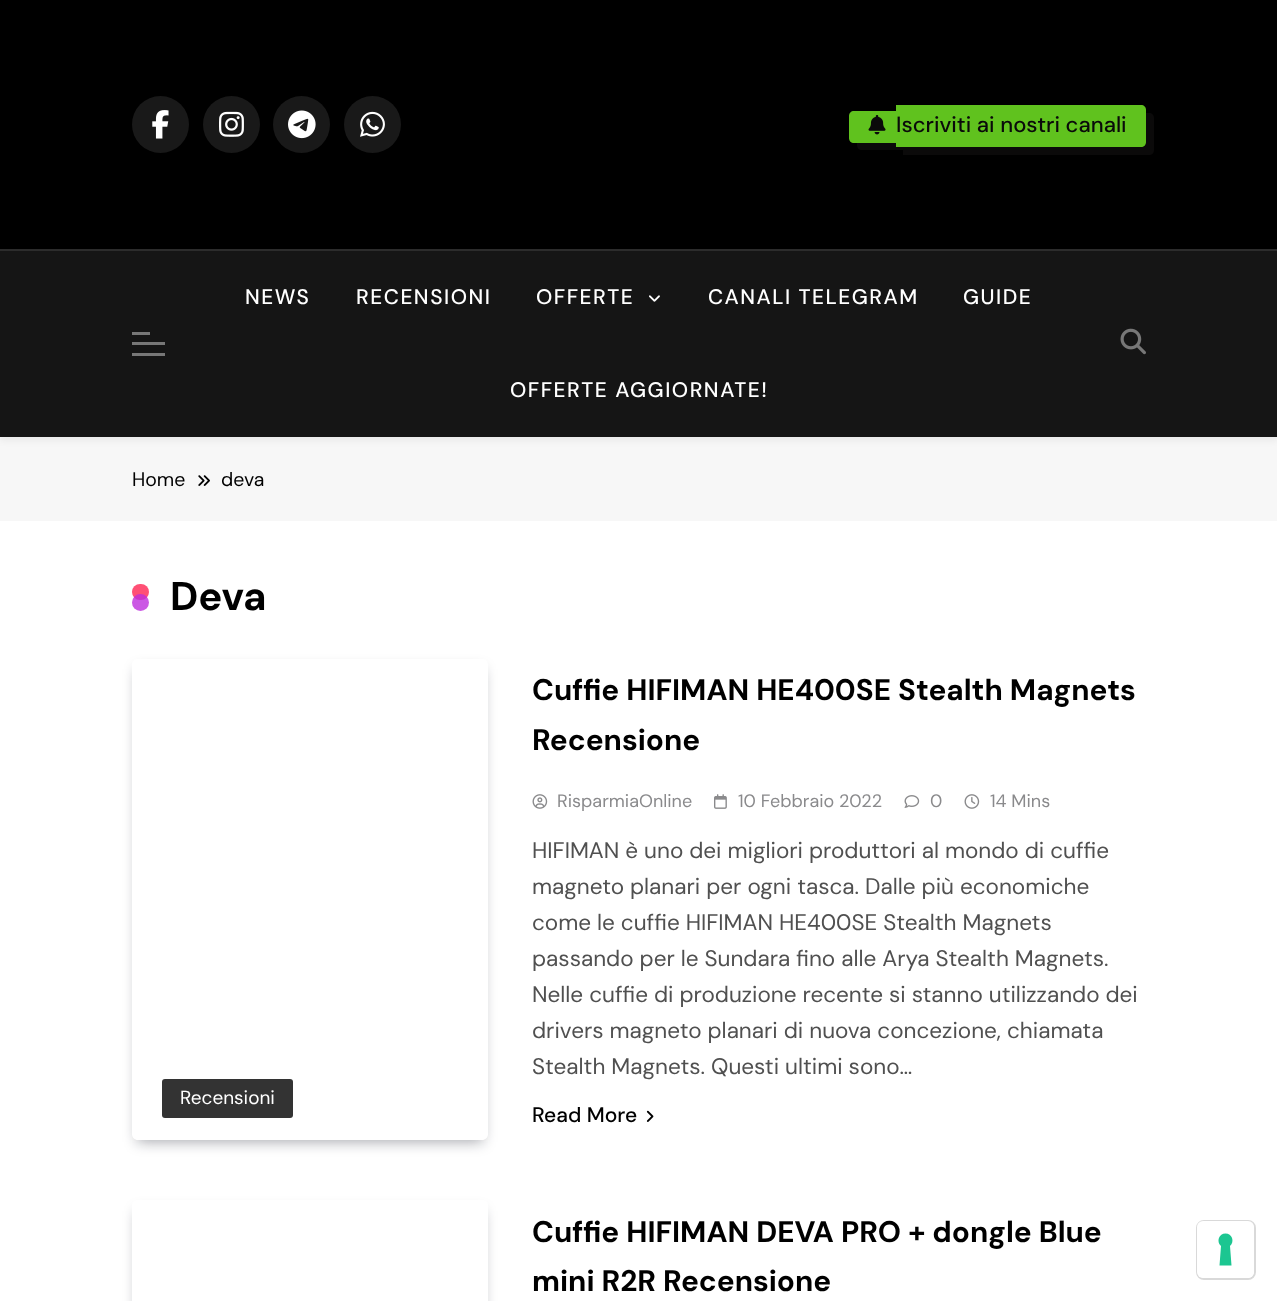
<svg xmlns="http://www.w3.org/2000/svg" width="1277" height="1301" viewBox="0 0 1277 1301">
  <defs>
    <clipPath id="clip1"><path d="M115 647H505V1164H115ZM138 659H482C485.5 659 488 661.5 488 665V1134C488 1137.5 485.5 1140 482 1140H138C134.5 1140 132 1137.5 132 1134V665C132 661.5 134.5 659 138 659Z" clip-rule="evenodd"/></clipPath>
    <clipPath id="clip2"><path d="M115 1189H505V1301H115ZM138 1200H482C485.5 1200 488 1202.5 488 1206V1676C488 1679.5 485.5 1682 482 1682H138C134.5 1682 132 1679.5 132 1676V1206C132 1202.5 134.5 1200 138 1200Z" clip-rule="evenodd"/></clipPath>
  </defs>
  <rect width="100%" height="100%" fill="rgb(255,255,255)"/>
  <rect x="0" y="437" width="1277" height="84" fill="rgb(247,247,247)"/>
  <rect x="0" y="5" width="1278" height="436" fill="rgba(0,0,0,0.05)" filter="blur(3px)"/>
  <rect x="0" y="0" width="1277" height="249" fill="rgb(0,0,0)"/>
  <circle cx="160.5" cy="124.5" r="28.5" fill="rgb(25,25,25)"/>
  <image x="152" y="110" width="17" height="29" href="pic1.png"/>
  <circle cx="231.5" cy="124.5" r="28.5" fill="rgb(25,25,25)"/>
  <image x="219" y="111" width="25" height="26" href="pic2.png"/>
  <circle cx="301.5" cy="124.5" r="28.5" fill="rgb(25,25,25)"/>
  <image x="288" y="110" width="28" height="29" href="pic3.png"/>
  <circle cx="372.5" cy="124.5" r="28.5" fill="rgb(25,25,25)"/>
  <image x="360" y="111" width="25" height="26" href="pic4.png"/>
  <path d="M857 142V145C857 148 859 150 862 150H903V119H896V142Z" fill="rgb(11,10,10)"/>
  <path d="M854 111H896V143H854C851 143 849 141 849 138V116C849 113 851 111 854 111Z" fill="rgb(96,194,30)"/>
  <path d="M903 147V155H1149C1152 155 1154 153 1154 150V118C1154 115 1152 113 1149 113H1146V142C1146 145 1144 147 1142 147Z" fill="rgb(11,10,10)"/>
  <path d="M896 105H1141C1144 105 1146 107 1146 110V142C1146 145 1144 147 1141 147H896Z" fill="rgb(96,194,30)"/>
  <image x="868" y="115" width="18" height="20" href="pic5.png"/>
  <text x="896" y="132" font-family="DM Sans" font-size="22" font-weight="500" fill="rgb(10,10,10)">Iscriviti ai nostri canali</text>
  <rect x="0" y="251" width="1277" height="186" fill="rgb(21,21,21)"/>
  <rect x="0" y="249" width="1277" height="2" fill="rgb(44,44,44)"/>
  <rect x="132" y="332" width="18" height="3" fill="rgb(119,119,119)"/>
  <rect x="132" y="342" width="33" height="3" fill="rgb(119,119,119)"/>
  <rect x="132" y="353" width="33" height="3" fill="rgb(119,119,119)"/>
  <g font-family="DM Sans" font-size="21" font-weight="500" letter-spacing="1.5" fill="rgb(255,255,255)">
    <text x="245" y="304">NEWS</text>
    <text x="356" y="304">RECENSIONI</text>
    <text x="536" y="304">OFFERTE</text>
  </g>
  <image x="649" y="295" width="11" height="7" href="pic6.png"/>
  <g font-family="DM Sans" font-size="21" font-weight="500" letter-spacing="1.5" fill="rgb(255,255,255)">
    <text x="708" y="304">CANALI TELEGRAM</text>
    <text x="963" y="304">GUIDE</text>
    <text x="510" y="397">OFFERTE AGGIORNATE!</text>
  </g>
  <image x="1120" y="328" width="26" height="27" href="pic7.png"/>
  <text x="132" y="486" font-family="DM Sans" font-size="19.5" fill="rgb(0,0,0)">Home</text>
  <image x="198" y="475" width="12" height="11" href="pic8.png"/>
  <text x="221" y="486" font-family="DM Sans" font-size="19.5" fill="rgb(0,0,0)">deva</text>
  <rect x="132" y="584" width="17" height="16" rx="8" fill="rgb(255,80,117)"/>
  <text x="170" y="610" font-family="DM Sans" font-size="40" font-weight="bold" fill="rgb(0,0,0)">Deva</text>
  <circle cx="140.5" cy="602.5" r="8.5" fill="rgba(190,46,221,0.8)"/>
  <g clip-path="url(#clip1)">
    <rect x="137" y="669" width="346" height="473" rx="1.5" fill="rgba(7,10,25,0.35)" filter="blur(7px)"/>
  </g>
  <rect x="162" y="1079" width="131" height="39" rx="3" fill="rgb(51,51,51)"/>
  <text x="180" y="1104" font-family="DM Sans" font-size="19" fill="rgb(255,255,255)">Recensioni</text>
  <g font-family="DM Sans" font-size="29.7" font-weight="bold" fill="rgb(0,0,0)">
    <text>
      <tspan x="532" y="700">Cuffie HIFIMAN HE400SE Stealth Magnets</tspan>
      <tspan x="532" y="750">Recensione</tspan>
    </text>
  </g>
  <image x="532" y="794" width="16" height="15" href="pic9.png"/>
  <text x="557" y="807" font-family="DM Sans" font-size="18" fill="rgb(138,138,140)">RisparmiaOnline</text>
  <image x="714" y="794" width="13" height="15" href="pic10.png"/>
  <text x="738" y="807" font-family="DM Sans" font-size="18" fill="rgb(138,138,140)">10 Febbraio 2022</text>
  <image x="904" y="795" width="16" height="13" href="pic11.png"/>
  <text x="930" y="807" font-family="DM Sans" font-size="18" fill="rgb(138,138,140)">0</text>
  <image x="964" y="794" width="16" height="15" href="pic12.png"/>
  <text x="990" y="807" font-family="DM Sans" font-size="18" fill="rgb(138,138,140)">14 Mins</text>
  <g font-family="DM Sans" font-size="22.5" fill="rgb(80,80,80)">
    <text>
      <tspan x="532" y="858">HIFIMAN è uno dei migliori produttori al mondo di cuffie</tspan>
      <tspan x="532" y="894">magneto planari per ogni tasca. Dalle più economiche</tspan>
      <tspan x="532" y="930">come le cuffie HIFIMAN HE400SE Stealth Magnets</tspan>
      <tspan x="532" y="966">passando per le Sundara fino alle Arya Stealth Magnets.</tspan>
      <tspan x="532" y="1002">Nelle cuffie di produzione recente si stanno utilizzando dei</tspan>
      <tspan x="532" y="1038">drivers magneto planari di nuova concezione, chiamata</tspan>
      <tspan x="532" y="1074">Stealth Magnets. Questi ultimi sono…</tspan>
    </text>
  </g>
  <text x="532" y="1122" font-family="DM Sans" font-size="21" font-weight="500" fill="rgb(0,0,0)">Read More</text>
  <image x="646" y="1110" width="8" height="12" href="pic13.png"/>
  <g clip-path="url(#clip2)">
    <rect x="137" y="1211" width="346" height="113" rx="1.5" fill="rgba(7,10,25,0.35)" filter="blur(7px)"/>
  </g>
  <g font-family="DM Sans" font-size="29.7" font-weight="bold" fill="rgb(0,0,0)">
    <text>
      <tspan x="532" y="1242">Cuffie HIFIMAN DEVA PRO + dongle Blue</tspan>
      <tspan x="532" y="1291">mini R2R Recensione</tspan>
    </text>
  </g>
  <rect x="1197" y="1221" width="58" height="58" rx="7" fill="none" stroke="rgb(217,217,217)" stroke-width="2"/>
  <rect x="1197" y="1221" width="57" height="57" rx="6" fill="rgb(255,255,255)"/>
  <path d="M1225.5 1233.5C1232 1233.5 1235 1241.5 1230 1246L1231.5 1265.5H1219.5L1221 1246C1216 1241.5 1219 1233.5 1225.5 1233.5Z" fill="rgb(28,198,145)" fill-rule="evenodd"/>
</svg>
